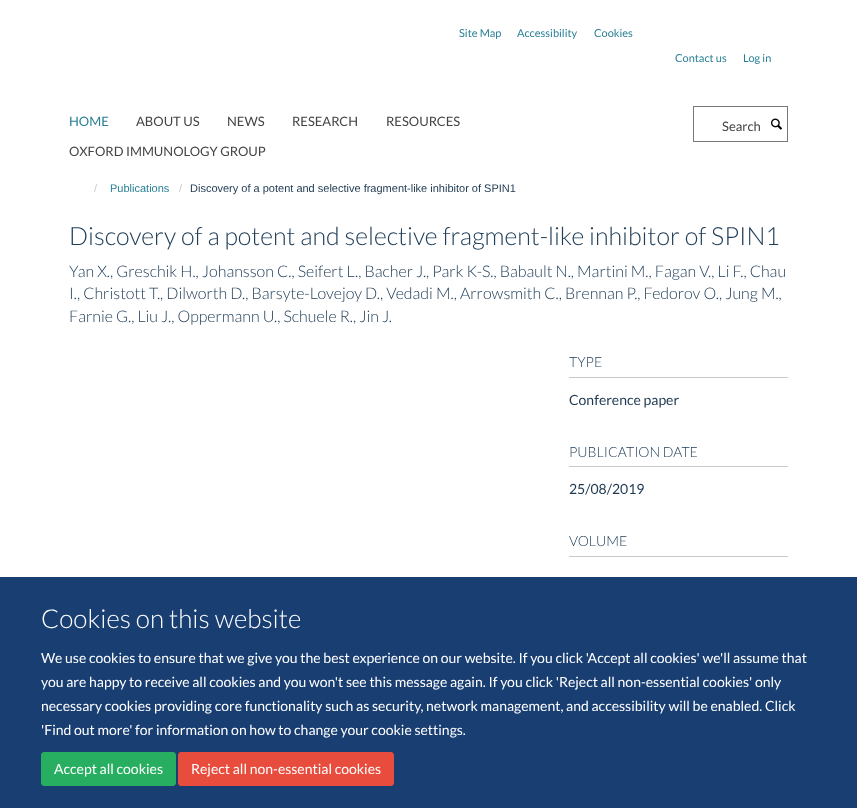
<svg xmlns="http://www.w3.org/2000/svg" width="857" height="808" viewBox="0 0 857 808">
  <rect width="100%" height="100%" fill="rgb(255,255,255)"/>
  <g font-family="Lato" font-size="11" fill="rgb(41,128,150)">
    <text x="459" y="37">Site Map</text>
    <text x="517" y="37">Accessibility</text>
    <text x="594" y="37">Cookies</text>
    <text x="675" y="62">Contact us</text>
    <text x="743" y="62">Log in</text>
  </g>
  <text x="69" y="126" font-family="Lato" font-size="13" fill="rgb(41,128,150)">HOME</text>
  <g font-family="Lato" font-size="13" fill="rgb(68,68,68)">
    <text x="136" y="126">ABOUT US</text>
    <text x="227" y="126">NEWS</text>
    <text x="292" y="126">RESEARCH</text>
    <text x="386" y="126">RESOURCES</text>
    <text x="69" y="156">OXFORD IMMUNOLOGY GROUP</text>
  </g>
  <rect x="693.5" y="106.5" width="94" height="35" fill="none" stroke="rgb(119,119,119)"/>
  <text x="722" y="131" font-family="Lato" font-size="13" fill="rgb(68,68,68)">Search</text>
  <image x="771" y="118" width="11" height="12" href="pic1.png"/>
  <text x="94" y="192" font-family="Liberation Sans" font-size="11" fill="rgb(204,204,204)">/</text>
  <text x="110" y="192" font-family="Liberation Sans" font-size="11" fill="rgb(41,128,150)">Publications</text>
  <text x="179" y="192" font-family="Liberation Sans" font-size="11" fill="rgb(204,204,204)">/</text>
  <text x="190" y="192" font-family="Liberation Sans" font-size="11" fill="rgb(29,56,80)">Discovery of a potent and selective fragment-like inhibitor of SPIN1</text>
  <text x="69" y="245" font-family="Lato" font-size="25" font-weight="300" fill="rgb(32,62,88)">Discovery of a potent and selective fragment-like inhibitor of SPIN1</text>
  <g font-family="Lato" font-size="16" font-weight="300" fill="rgb(32,62,88)">
    <text>
      <tspan x="69" y="277">Yan X., Greschik H., Johansson C., Seifert L., Bacher J., Park K-S., Babault N., Martini M., Fagan V., Li F., Chau</tspan>
      <tspan x="69" y="299">I., Christott T., Dilworth D., Barsyte-Lovejoy D., Vedadi M., Arrowsmith C., Brennan P., Fedorov O., Jung M.,</tspan>
      <tspan x="69" y="322">Farnie G., Liu J., Oppermann U., Schuele R., Jin J.</tspan>
    </text>
  </g>
  <rect x="569" y="377" width="219" height="1" fill="rgb(198,202,207)"/>
  <text x="569" y="367" font-family="Lato" font-size="14" font-weight="300" fill="rgb(32,62,88)">TYPE</text>
  <text x="569" y="405" font-family="Lato" font-size="14" fill="rgb(29,56,80)">Conference paper</text>
  <rect x="569" y="466" width="219" height="1" fill="rgb(198,202,207)"/>
  <text x="569" y="457" font-family="Lato" font-size="14" font-weight="300" fill="rgb(32,62,88)">PUBLICATION DATE</text>
  <text x="569" y="494" font-family="Lato" font-size="14" fill="rgb(29,56,80)">25/08/2019</text>
  <rect x="569" y="556" width="219" height="1" fill="rgb(198,202,207)"/>
  <text x="569" y="546" font-family="Lato" font-size="14" font-weight="300" fill="rgb(32,62,88)">VOLUME</text>
  <rect x="0" y="577" width="857" height="231" fill="rgb(25,62,114)"/>
  <text x="41" y="628" font-family="Lato" font-size="26" font-weight="300" fill="rgb(255,255,255)">Cookies on this website</text>
  <g font-family="Lato" font-size="14" fill="rgb(255,255,255)">
    <text>
      <tspan x="41" y="663">We use cookies to ensure that we give you the best experience on our website. If you click 'Accept all cookies' we'll assume that</tspan>
      <tspan x="41" y="687">you are happy to receive all cookies and you won't see this message again. If you click 'Reject all non-essential cookies' only</tspan>
      <tspan x="41" y="711">necessary cookies providing core functionality such as security, network management, and accessibility will be enabled. Click</tspan>
      <tspan x="41" y="735">'Find out more' for information on how to change your cookie settings.</tspan>
    </text>
  </g>
  <rect x="41.5" y="752.5" width="134" height="33" rx="2.5" fill="rgb(39,174,96)" stroke="rgb(39,174,96)"/>
  <text x="54" y="774" font-family="Lato" font-size="14" fill="rgb(255,255,255)">Accept all cookies</text>
  <rect x="178.5" y="752.5" width="215" height="33" rx="2.5" fill="rgb(231,76,60)" stroke="rgb(231,76,60)"/>
  <text x="191" y="774" font-family="Lato" font-size="14" fill="rgb(255,255,255)">Reject all non-essential cookies</text>
</svg>
